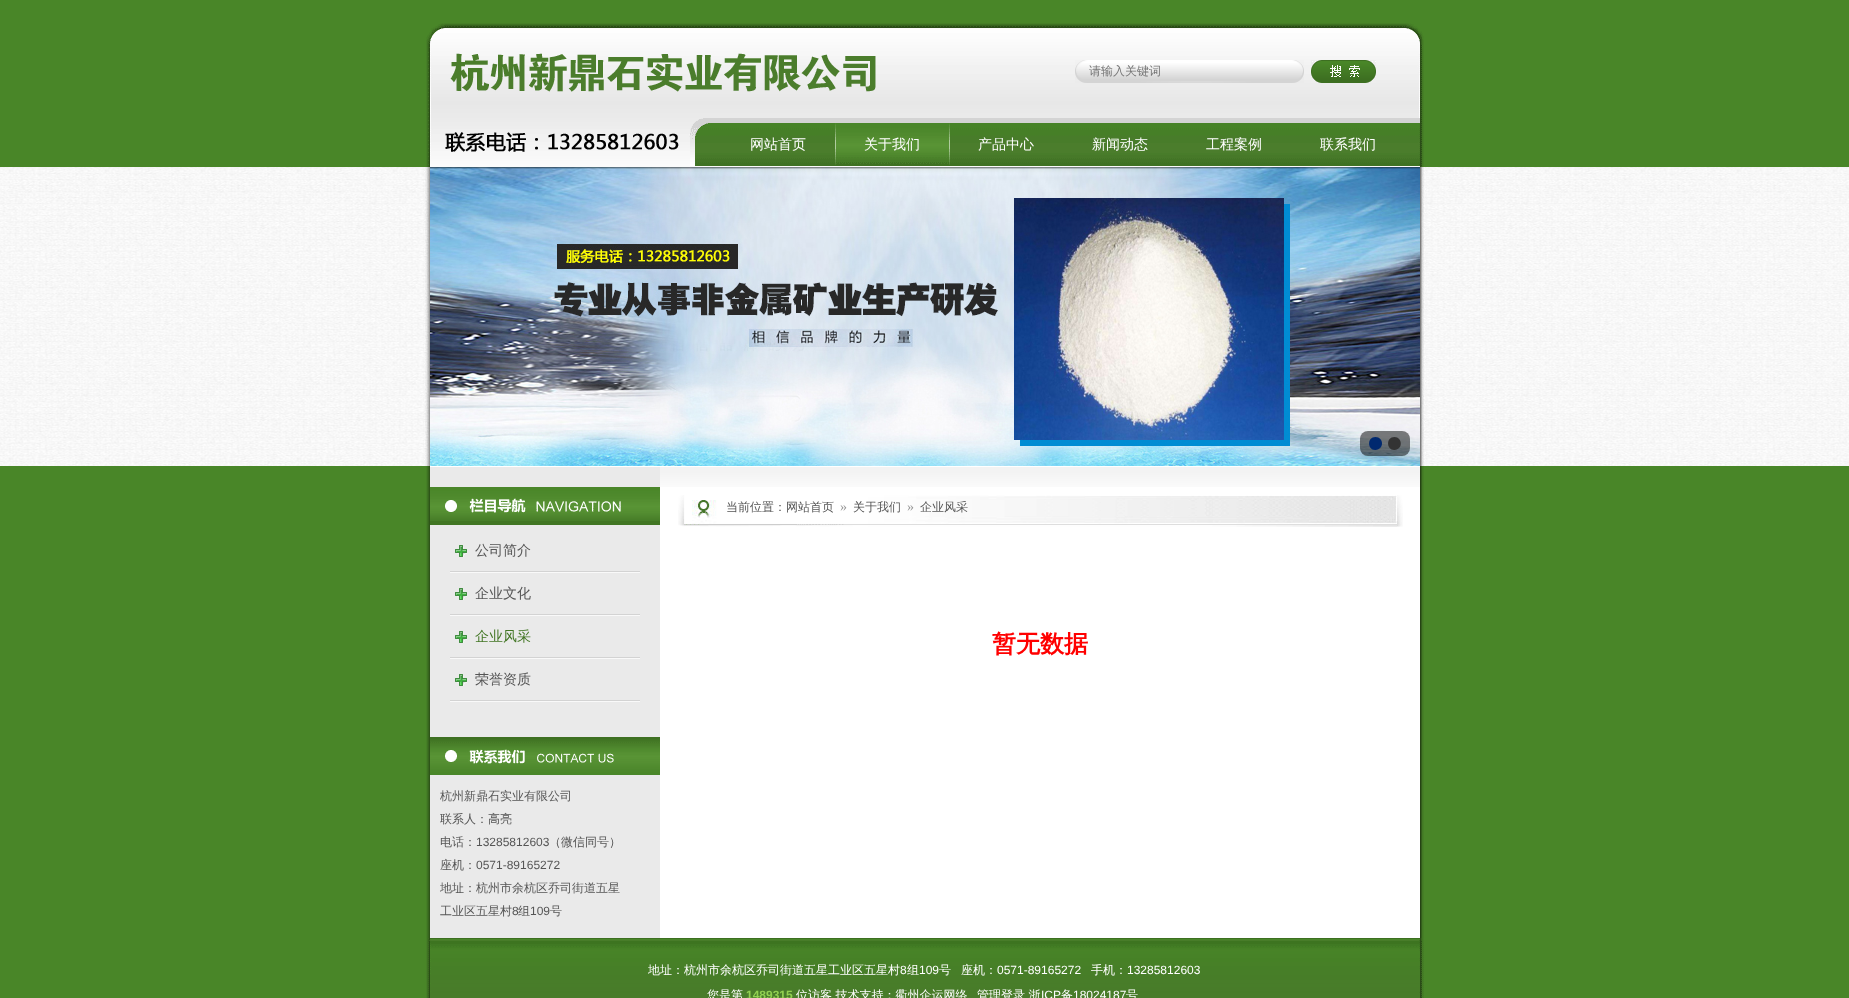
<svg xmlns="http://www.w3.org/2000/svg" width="1849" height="998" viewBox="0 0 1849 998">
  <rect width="100%" height="100%" fill="rgb(73,134,40)"/>
  <image x="0" y="167" width="1849" height="299" href="pic1.png"/>
  <image x="426" y="23" width="998" height="144" href="pic2.png"/>
  <image x="450" y="53" width="426" height="39" href="pic3.png"/>
  <image x="1075" y="60" width="229" height="23" href="pic4.png"/>
  <text x="1089" y="75" font-family="WenQuanYi Zen Hei" font-size="12" font-weight="500" fill="rgb(117,117,117)">请输入关键词</text>
  <image x="1311" y="60" width="65" height="23" href="pic5.png"/>
  <image x="445" y="132" width="234" height="20" href="pic6.png"/>
  <text x="750" y="149" font-family="WenQuanYi Zen Hei" font-size="14" font-weight="500" fill="rgb(255,255,255)">网站首页</text>
  <image x="835" y="123" width="115" height="42" href="pic7.png"/>
  <g font-family="WenQuanYi Zen Hei" font-size="14" font-weight="500" fill="rgb(255,255,255)">
    <text x="864" y="149">关于我们</text>
    <text x="978" y="149">产品中心</text>
    <text x="1092" y="149">新闻动态</text>
    <text x="1206" y="149">工程案例</text>
    <text x="1320" y="149">联系我们</text>
  </g>
  <image x="424" y="167" width="1002" height="299" href="pic8.png"/>
  <image x="430" y="167" width="990" height="299" href="pic9.png"/>
  <rect x="1360" y="431" width="50" height="25" rx="8" fill="rgba(0,0,0,0.5)"/>
  <path d="M1375.5 437C1366.5 437 1367.5 450.5 1375.5 450C1384.5 449.5 1384 437 1375.5 437Z" fill="rgb(0,41,111)"/>
  <path d="M1394.5 437C1385.5 437 1386.5 450.5 1394.5 450C1403.5 449.5 1402.5 437 1394.5 437Z" fill="rgb(51,51,51)"/>
  <image x="430" y="167" width="990" height="2" href="pic10.png"/>
  <image x="426" y="466" width="998" height="472" href="pic11.png"/>
  <image x="430" y="466" width="990" height="21" href="pic12.png"/>
  <image x="430" y="487" width="230" height="38" href="pic13.png"/>
  <image x="450" y="545" width="190" height="28" href="pic14.png"/>
  <text x="475" y="555" font-family="WenQuanYi Zen Hei" font-size="14" font-weight="500" fill="rgb(85,85,85)">公司简介</text>
  <image x="450" y="588" width="190" height="28" href="pic14.png"/>
  <text x="475" y="598" font-family="WenQuanYi Zen Hei" font-size="14" font-weight="500" fill="rgb(85,85,85)">企业文化</text>
  <image x="450" y="631" width="190" height="28" href="pic14.png"/>
  <text x="475" y="641" font-family="WenQuanYi Zen Hei" font-size="14" font-weight="500" fill="rgb(66,118,36)">企业风采</text>
  <image x="450" y="674" width="190" height="28" href="pic14.png"/>
  <text x="475" y="684" font-family="WenQuanYi Zen Hei" font-size="14" font-weight="500" fill="rgb(85,85,85)">荣誉资质</text>
  <image x="430" y="737" width="230" height="38" href="pic15.png"/>
  <g font-family="WenQuanYi Zen Hei" font-size="12" font-weight="500" fill="rgb(85,85,85)">
    <text>
      <tspan x="440" y="800">杭州新鼎石实业有限公司</tspan>
      <tspan x="440" y="823">联系人：高亮</tspan>
      <tspan x="440" y="846">电话：</tspan>
    </text>
  </g>
  <text x="476" y="846" font-family="Liberation Sans" font-size="12" fill="rgb(85,85,85)">13285812603</text>
  <g font-family="WenQuanYi Zen Hei" font-size="12" font-weight="500" fill="rgb(85,85,85)">
    <text x="549" y="846">（微信同号）</text>
    <text x="440" y="869">座机：</text>
  </g>
  <text x="476" y="869" font-family="Liberation Sans" font-size="12" fill="rgb(85,85,85)">0571-89165272</text>
  <g font-family="WenQuanYi Zen Hei" font-size="12" font-weight="500" fill="rgb(85,85,85)">
    <text>
      <tspan x="440" y="892">地址：杭州市余杭区乔司街道五星</tspan>
      <tspan x="440" y="915">工业区五星村</tspan>
    </text>
  </g>
  <text x="512" y="915" font-family="Liberation Sans" font-size="12" fill="rgb(85,85,85)">8</text>
  <text x="518" y="915" font-family="WenQuanYi Zen Hei" font-size="12" font-weight="500" fill="rgb(85,85,85)">组</text>
  <text x="530" y="915" font-family="Liberation Sans" font-size="12" fill="rgb(85,85,85)">109</text>
  <text x="550" y="915" font-family="WenQuanYi Zen Hei" font-size="12" font-weight="500" fill="rgb(85,85,85)">号</text>
  <image x="678" y="495" width="725" height="32" href="pic16.png"/>
  <text x="726" y="511" font-family="WenQuanYi Zen Hei" font-size="12" font-weight="500" fill="rgb(85,85,85)">当前位置：网站首页</text>
  <text x="840" y="511" font-family="Liberation Serif" font-size="14" fill="rgb(153,153,153)">»</text>
  <text x="853" y="511" font-family="WenQuanYi Zen Hei" font-size="12" font-weight="500" fill="rgb(85,85,85)">关于我们</text>
  <text x="907" y="511" font-family="Liberation Serif" font-size="14" fill="rgb(153,153,153)">»</text>
  <text x="920" y="511" font-family="WenQuanYi Zen Hei" font-size="12" font-weight="500" fill="rgb(85,85,85)">企业风采</text>
  <text x="992" y="652" font-family="WenQuanYi Zen Hei" font-size="24" font-weight="bold" fill="rgb(255,0,0)">暂无数据</text>
  <image x="426" y="938" width="998" height="60" href="pic17.png"/>
  <text x="648" y="974" font-family="WenQuanYi Zen Hei" font-size="12" font-weight="500" fill="rgb(255,255,255)">地址：杭州市余杭区乔司街道五星工业区五星村</text>
  <text x="900" y="974" font-family="Liberation Sans" font-size="12" fill="rgb(255,255,255)">8</text>
  <text x="907" y="974" font-family="WenQuanYi Zen Hei" font-size="12" font-weight="500" fill="rgb(255,255,255)">组</text>
  <text x="919" y="974" font-family="Liberation Sans" font-size="12" fill="rgb(255,255,255)">109</text>
  <g font-family="WenQuanYi Zen Hei" font-size="12" font-weight="500" fill="rgb(255,255,255)">
    <text x="939" y="974">号</text>
    <text x="961" y="974">座机：</text>
  </g>
  <text x="997" y="974" font-family="Liberation Sans" font-size="12" fill="rgb(255,255,255)">0571-89165272</text>
  <text x="1091" y="974" font-family="WenQuanYi Zen Hei" font-size="12" font-weight="500" fill="rgb(255,255,255)">手机：</text>
  <text x="1127" y="974" font-family="Liberation Sans" font-size="12" fill="rgb(255,255,255)">13285812603</text>
  <text x="707" y="999" font-family="WenQuanYi Zen Hei" font-size="12" font-weight="500" fill="rgb(255,255,255)">您是第</text>
  <text x="746" y="999" font-family="Liberation Sans" font-size="12" font-weight="bold" fill="rgb(146,208,81)">1489315</text>
  <g font-family="WenQuanYi Zen Hei" font-size="12" font-weight="500" fill="rgb(255,255,255)">
    <text x="796" y="999">位访客 技术支持：衢州企运网络</text>
    <text x="977" y="999">管理登录 浙</text>
  </g>
  <text x="1041" y="999" font-family="Liberation Sans" font-size="12" fill="rgb(255,255,255)">ICP</text>
  <text x="1061" y="999" font-family="WenQuanYi Zen Hei" font-size="12" font-weight="500" fill="rgb(255,255,255)">备</text>
  <text x="1073" y="999" font-family="Liberation Sans" font-size="12" fill="rgb(255,255,255)">18024187</text>
  <text x="1126" y="999" font-family="WenQuanYi Zen Hei" font-size="12" font-weight="500" fill="rgb(255,255,255)">号</text>
</svg>
